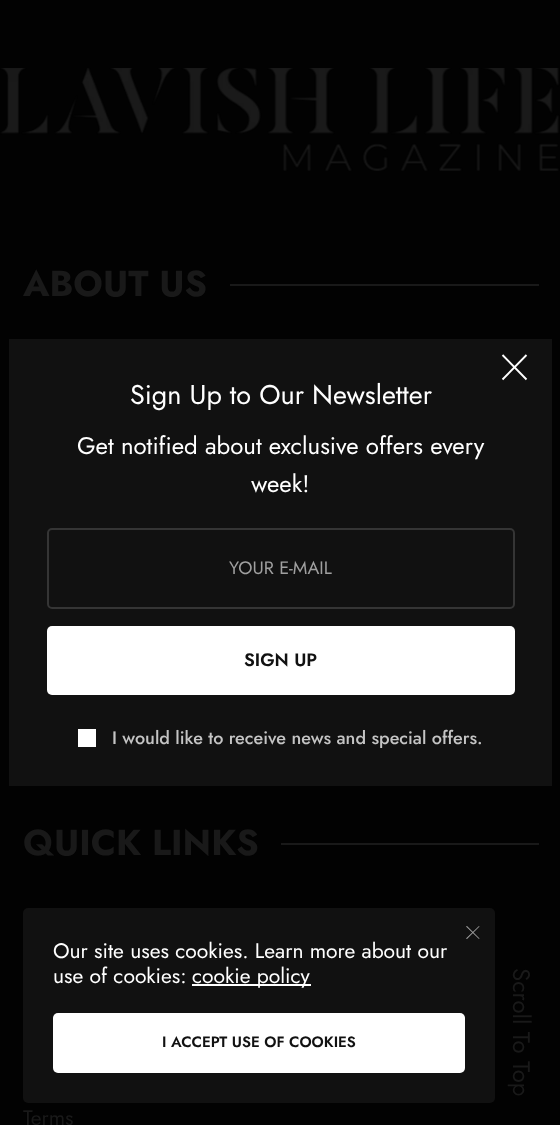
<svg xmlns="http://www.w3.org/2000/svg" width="560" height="1125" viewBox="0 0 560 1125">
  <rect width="100%" height="100%" fill="rgb(2,2,2)"/>
  <image x="0" y="68" width="560" height="103" href="pic1.png"/>
  <text x="23" y="296" font-family="Jost" font-size="36" font-weight="bold" fill="rgb(25,25,25)">ABOUT US</text>
  <rect x="230" y="284" width="309" height="2" fill="rgb(25,25,25)"/>
  <text x="23" y="855" font-family="Jost" font-size="36" font-weight="bold" fill="rgb(25,25,25)">QUICK LINKS</text>
  <rect x="281" y="843" width="258" height="2" fill="rgb(25,25,25)"/>
  <text x="23" y="1125" font-family="Jost" font-size="21" fill="rgb(25,25,25)">Terms</text>
  <rect x="23" y="908" width="472" height="195" rx="5" fill="rgb(17,17,17)"/>
  <path d="M467 926L479.5 938.5L479 939L466 926.5Z" fill="rgb(163,163,163)"/>
  <path d="M466 938.5L479 926L479.5 926.5L467 939Z" fill="rgb(163,163,163)"/>
  <g font-family="Jost" font-size="21" fill="rgb(255,255,255)">
    <text>
      <tspan x="53" y="958">Our site uses cookies. Learn more about our</tspan>
      <tspan x="53" y="983">use of cookies:</tspan>
    </text>
  </g>
  <rect x="192" y="984" width="119" height="2" fill="rgb(255,255,255)"/>
  <text x="192" y="983" font-family="Jost" font-size="21" fill="rgb(255,255,255)">cookie policy</text>
  <rect x="53" y="1013" width="412" height="60" rx="5" fill="rgb(255,255,255)"/>
  <text x="162" y="1047" font-family="Jost" font-size="15" font-weight="600" fill="rgb(17,17,17)">I ACCEPT USE OF COOKIES</text>
  <text x="513" y="968" transform="rotate(90 513 968)" font-family="Jost" font-size="24" fill="rgb(25,25,25)">Scroll To Top</text>
  <rect x="9" y="339" width="543" height="447" fill="rgb(17,17,17)"/>
  <path d="M502.5 355L526.5 379.5M502.5 379.5L526.5 355" fill="none" stroke="rgb(255,255,255)" stroke-width="1.9"/>
  <text x="130" y="404" font-family="Jost" font-size="27" fill="rgb(255,255,255)">Sign Up to Our Newsletter</text>
  <g font-family="Jost" font-size="24" fill="rgb(255,255,255)">
    <text x="77" y="454">Get notified about exclusive offers every</text>
    <text x="251" y="492">week!</text>
  </g>
  <rect x="48" y="529" width="466" height="79" rx="4" fill="none" stroke="rgb(53,53,53)" stroke-width="2"/>
  <text x="229" y="574" font-family="Jost" font-size="18" fill="rgb(160,160,160)">YOUR E-MAIL</text>
  <rect x="47" y="626" width="468" height="69" rx="5" fill="rgb(255,255,255)"/>
  <text x="244" y="666" font-family="Jost" font-size="18" font-weight="600" fill="rgb(17,17,17)">SIGN UP</text>
  <rect x="78" y="729" width="18" height="18" fill="rgb(255,255,255)"/>
  <text x="112" y="744" font-family="Jost" font-size="18" font-weight="500" fill="rgb(196,196,196)">I would like to receive news and special offers.</text>
</svg>
